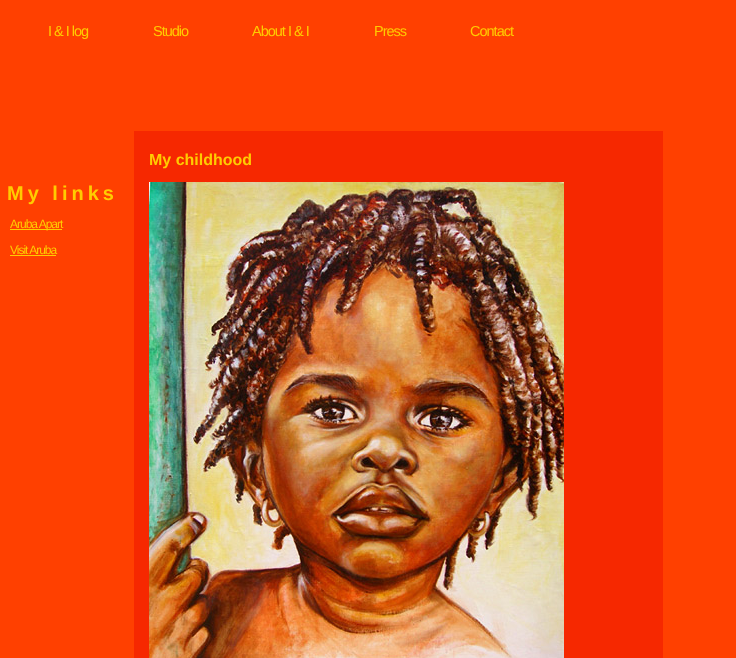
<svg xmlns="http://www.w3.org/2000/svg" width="736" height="658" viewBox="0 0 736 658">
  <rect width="100%" height="100%" fill="rgb(255,64,0)"/>
  <g font-family="Liberation Sans" font-size="14.5" letter-spacing="-1" fill="rgb(255,204,0)">
    <text x="48" y="36">I &amp; I log</text>
    <text x="153" y="36">Studio</text>
    <text x="252" y="36">About I &amp; I</text>
    <text x="374" y="36">Press</text>
    <text x="470" y="36">Contact</text>
  </g>
  <rect x="134" y="131" width="529" height="527" fill="rgb(246,40,0)"/>
  <text x="149" y="165" font-family="Liberation Sans" font-size="16" font-weight="bold" fill="rgb(255,204,0)">My childhood</text>
  <image x="149" y="182" width="415" height="476" href="pic1.png"/>
  <text x="7" y="200" font-family="Liberation Sans" font-size="20" font-weight="bold" letter-spacing="4" fill="rgb(255,204,0)">My links</text>
  <rect x="10" y="229" width="52" height="1" fill="rgb(255,204,0)"/>
  <g font-family="Liberation Sans" font-size="12" letter-spacing="-1" fill="rgb(255,204,0)">
    <text x="10" y="228">Aruba Apart</text>
    <text x="10" y="254">Visit Aruba</text>
  </g>
  <rect x="10" y="255" width="46" height="1" fill="rgb(255,204,0)"/>
</svg>
